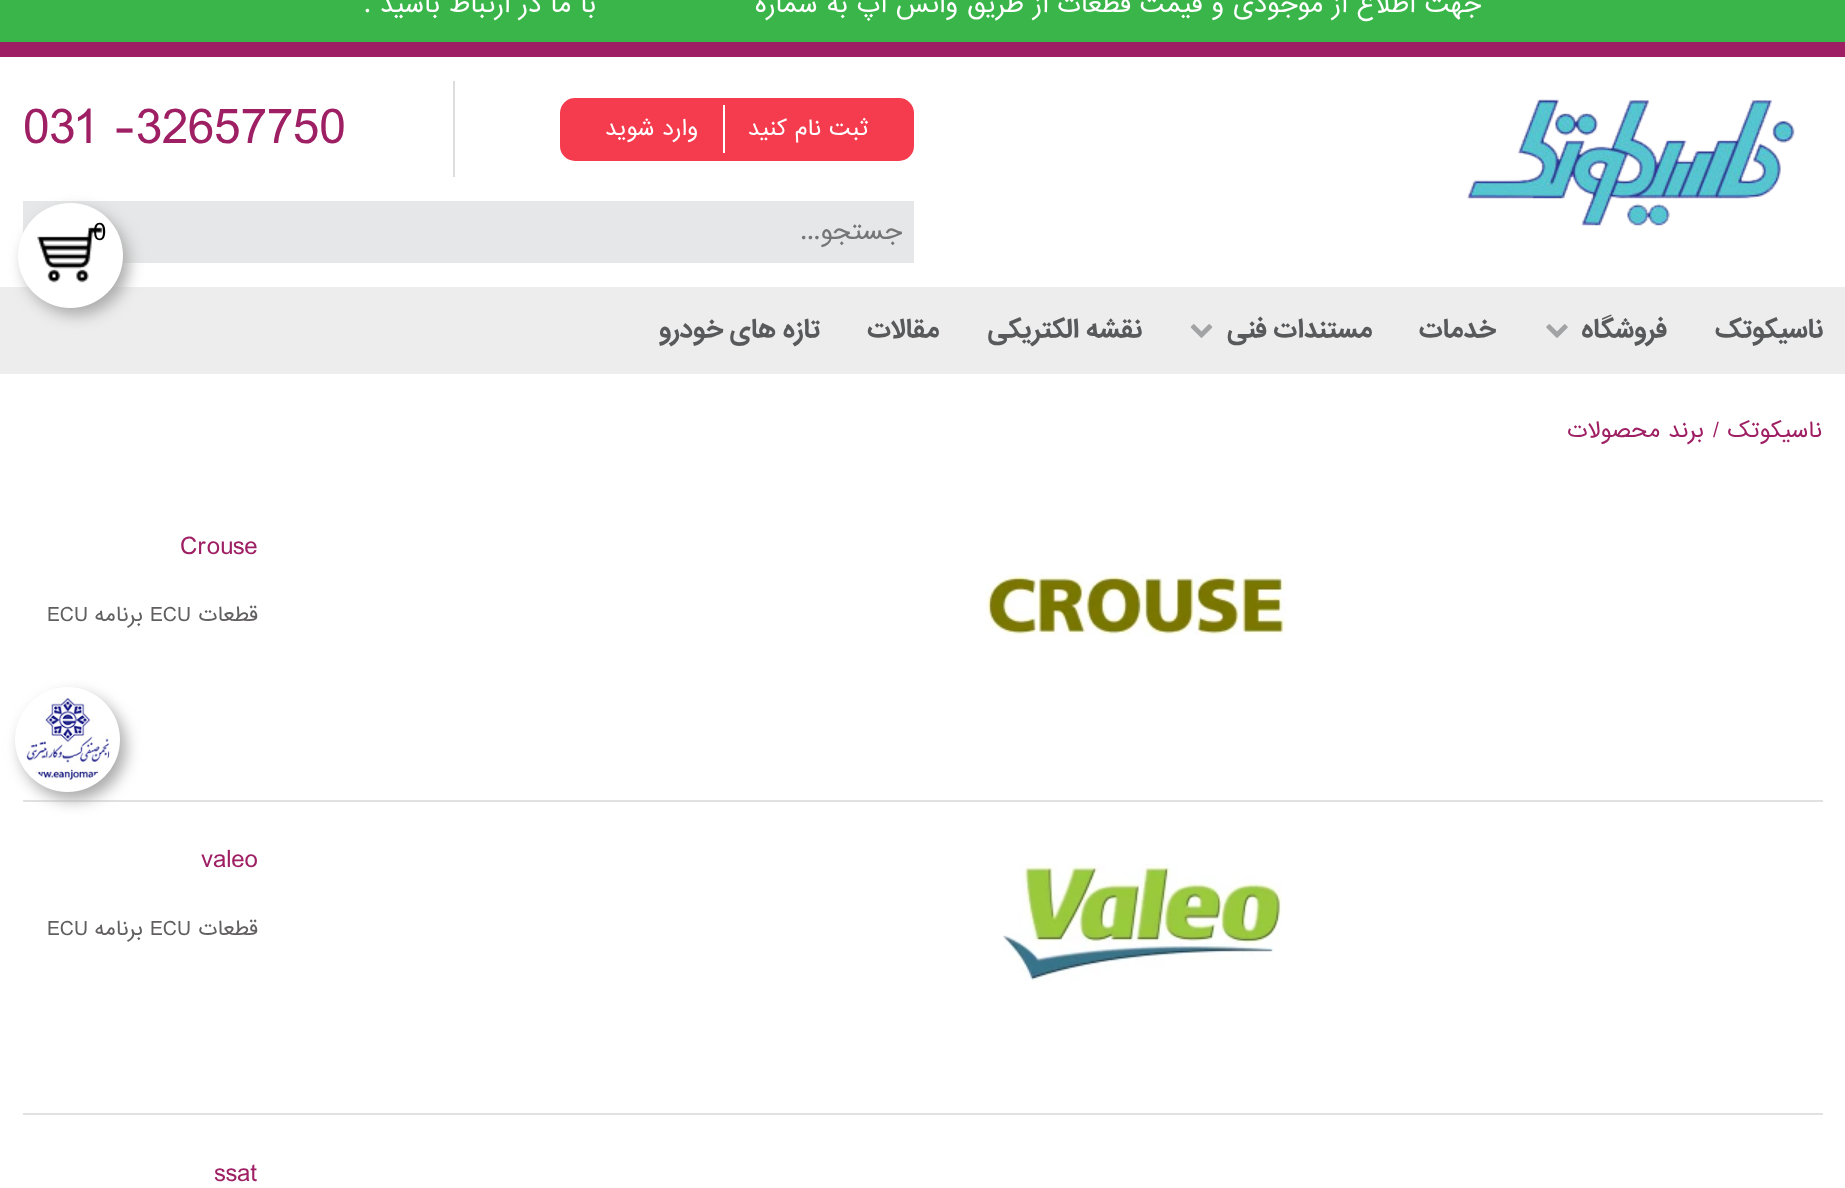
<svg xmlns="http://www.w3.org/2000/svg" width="1845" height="1188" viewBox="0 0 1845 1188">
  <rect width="100%" height="100%" fill="rgb(255,255,255)"/>
  <rect x="0" y="0" width="1845" height="42" fill="rgb(57,181,74)"/>
  <rect x="0" y="42" width="1845" height="15" fill="rgb(158,31,99)"/>
  <g font-family="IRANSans" font-size="24" direction="rtl" fill="rgb(255,255,255)">
    <text x="1481" y="12">جهت اطلاع از موجودی و قیمت قطعات از طریق واتس اپ به شماره</text>
    <text x="596" y="12">با ما در ارتباط باشید .</text>
  </g>
  <image x="1467" y="99" width="328" height="127" href="pic1.png"/>
  <rect x="560" y="98" width="354" height="63" rx="15" fill="rgb(245,60,78)"/>
  <text x="868" y="135" font-family="IRANSans" font-size="21" direction="rtl" fill="rgb(255,255,255)">ثبت نام کنید</text>
  <rect x="723" y="105" width="2" height="48" fill="rgb(255,255,255)"/>
  <text x="698" y="135" font-family="IRANSans" font-size="21" direction="rtl" fill="rgb(255,255,255)">وارد شوید</text>
  <rect x="453" y="81" width="2" height="96" fill="rgb(221,221,221)"/>
  <text x="23" y="143" font-family="IRANSans" font-size="48" letter-spacing="-0.75" fill="rgb(158,31,99)">031 -32657750</text>
  <rect x="23" y="201" width="891" height="62" fill="rgb(230,231,232)"/>
  <text x="902" y="239" font-family="IRANSans" font-size="24" direction="rtl" fill="rgb(117,117,117)">جستجو...</text>
  <rect x="0" y="287" width="1845" height="87" fill="rgb(237,237,237)"/>
  <rect x="24" y="210" width="105" height="105" rx="52.5" fill="rgb(170,170,170)" filter="blur(7.5px)"/>
  <circle cx="70.5" cy="255.5" r="52.5" fill="rgb(255,255,255)"/>
  <image x="37" y="227" width="66" height="56" href="pic2.png"/>
  <text x="93" y="240" font-family="IRANSans" font-size="24" fill="rgb(0,0,0)">0</text>
  <g font-family="IRANSans" font-size="24" font-weight="bold" direction="rtl" fill="rgb(88,89,91)">
    <text x="1823" y="337">ناسیکوتک</text>
    <text x="1667" y="337">فروشگاه</text>
  </g>
  <image x="1546" y="324" width="22" height="14" href="pic3.png"/>
  <g font-family="IRANSans" font-size="24" font-weight="bold" direction="rtl" fill="rgb(88,89,91)">
    <text x="1496" y="337">خدمات</text>
    <text x="1372" y="337">مستندات فنی</text>
  </g>
  <image x="1190" y="324" width="23" height="14" href="pic4.png"/>
  <g font-family="IRANSans" font-size="24" font-weight="bold" direction="rtl" fill="rgb(88,89,91)">
    <text x="1142" y="337">نقشه الکتریکی</text>
    <text x="939" y="337">مقالات</text>
    <text x="820" y="337">تازه های خودرو</text>
  </g>
  <text x="1822" y="437" font-family="IRANSans" font-size="21" direction="rtl" fill="rgb(158,31,99)">ناسیکوتک</text>
  <text x="1713" y="437" font-family="IRANSans" font-size="21" fill="rgb(158,31,99)">/</text>
  <text x="1704" y="437" font-family="IRANSans" font-size="21" direction="rtl" fill="rgb(158,31,99)">برند محصولات</text>
  <rect x="23" y="800" width="1800" height="2" fill="rgb(225,225,225)"/>
  <image x="985" y="574" width="301" height="62" href="pic5.png"/>
  <text x="180" y="554" font-family="IRANSans" font-size="24" fill="rgb(158,31,99)">Crouse</text>
  <text x="258" y="621" font-family="IRANSans" font-size="19.5" direction="rtl" fill="rgb(97,95,95)">قطعات</text>
  <text x="150" y="621" font-family="IRANSans" font-size="19.5" fill="rgb(97,95,95)">ECU</text>
  <text x="143" y="621" font-family="IRANSans" font-size="19.5" direction="rtl" fill="rgb(97,95,95)">برنامه</text>
  <text x="47" y="621" font-family="IRANSans" font-size="19.5" fill="rgb(97,95,95)">ECU</text>
  <rect x="23" y="1113" width="1800" height="2" fill="rgb(225,225,225)"/>
  <image x="1003" y="864" width="279" height="117" href="pic6.png"/>
  <text x="201" y="867" font-family="IRANSans" font-size="24" fill="rgb(158,31,99)">valeo</text>
  <text x="258" y="935" font-family="IRANSans" font-size="19.5" direction="rtl" fill="rgb(97,95,95)">قطعات</text>
  <text x="150" y="935" font-family="IRANSans" font-size="19.5" fill="rgb(97,95,95)">ECU</text>
  <text x="143" y="935" font-family="IRANSans" font-size="19.5" direction="rtl" fill="rgb(97,95,95)">برنامه</text>
  <text x="47" y="935" font-family="IRANSans" font-size="19.5" fill="rgb(97,95,95)">ECU</text>
  <text x="214" y="1181" font-family="IRANSans" font-size="24" fill="rgb(158,31,99)">ssat</text>
  <rect x="21" y="695" width="105" height="105" rx="52.5" fill="rgb(170,170,170)" filter="blur(7.5px)"/>
  <circle cx="67.5" cy="739.5" r="52.5" fill="rgb(255,255,255)"/>
  <image x="25" y="698" width="87" height="86" href="pic7.png"/>
</svg>
